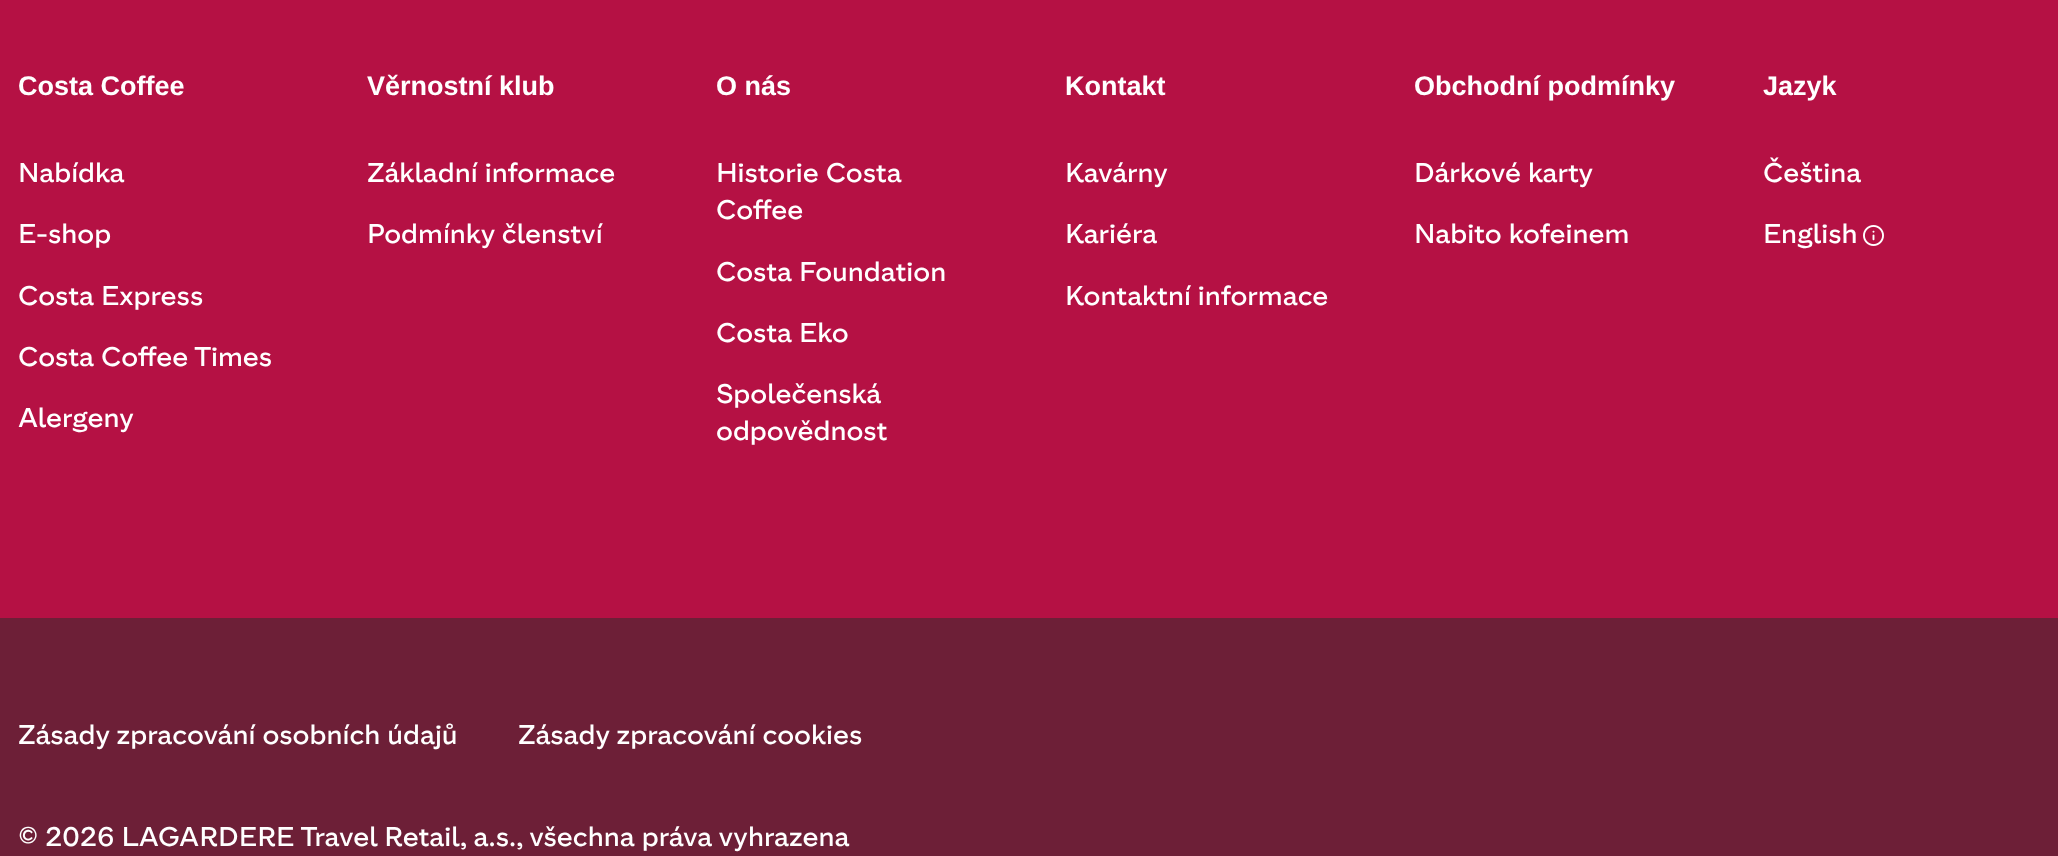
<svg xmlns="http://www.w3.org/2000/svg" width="2058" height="856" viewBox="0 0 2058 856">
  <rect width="100%" height="100%" fill="rgb(181,17,68)"/>
  <text x="18" y="95" font-family="Liberation Sans" font-size="27" font-weight="bold" fill="rgb(255,255,255)">Costa Coffee</text>
  <g font-family="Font" font-size="27" fill="rgb(255,255,255)">
    <text x="18" y="182">Nabídka</text>
    <text x="18" y="243">E-shop</text>
    <text x="18" y="305">Costa Express</text>
    <text x="18" y="366">Costa Coffee Times</text>
    <text x="18" y="427">Alergeny</text>
  </g>
  <text x="367" y="95" font-family="Liberation Sans" font-size="27" font-weight="bold" fill="rgb(255,255,255)">Věrnostní klub</text>
  <g font-family="Font" font-size="27" fill="rgb(255,255,255)">
    <text x="367" y="182">Základní informace</text>
    <text x="367" y="243">Podmínky členství</text>
  </g>
  <text x="716" y="95" font-family="Liberation Sans" font-size="27" font-weight="bold" fill="rgb(255,255,255)">O nás</text>
  <g font-family="Font" font-size="27" fill="rgb(255,255,255)">
    <text>
      <tspan x="716" y="182">Historie Costa</tspan>
      <tspan x="716" y="219">Coffee</tspan>
    </text>
    <text x="716" y="281">Costa Foundation</text>
    <text x="716" y="342">Costa Eko</text>
    <text>
      <tspan x="716" y="403">Společenská</tspan>
      <tspan x="716" y="440">odpovědnost</tspan>
    </text>
  </g>
  <text x="1065" y="95" font-family="Liberation Sans" font-size="27" font-weight="bold" fill="rgb(255,255,255)">Kontakt</text>
  <g font-family="Font" font-size="27" fill="rgb(255,255,255)">
    <text x="1065" y="182">Kavárny</text>
    <text x="1065" y="243">Kariéra</text>
    <text x="1065" y="305">Kontaktní informace</text>
  </g>
  <text x="1414" y="95" font-family="Liberation Sans" font-size="27" font-weight="bold" fill="rgb(255,255,255)">Obchodní podmínky</text>
  <g font-family="Font" font-size="27" fill="rgb(255,255,255)">
    <text x="1414" y="182">Dárkové karty</text>
    <text x="1414" y="243">Nabito kofeinem</text>
  </g>
  <text x="1763" y="95" font-family="Liberation Sans" font-size="27" font-weight="bold" fill="rgb(255,255,255)">Jazyk</text>
  <g font-family="Font" font-size="27" fill="rgb(255,255,255)">
    <text x="1763" y="182">Čeština</text>
    <text x="1763" y="243">English</text>
  </g>
  <image x="1863" y="225" width="21" height="21" href="pic1.png"/>
  <rect x="0" y="618" width="2058" height="238" fill="rgb(109,31,55)"/>
  <g font-family="Font" font-size="27" fill="rgb(255,255,255)">
    <text x="18" y="744">Zásady zpracování osobních údajů</text>
    <text x="518" y="744">Zásady zpracování cookies</text>
    <text x="18" y="846">© 2026 LAGARDERE Travel Retail, a.s., všechna práva vyhrazena</text>
  </g>
</svg>
